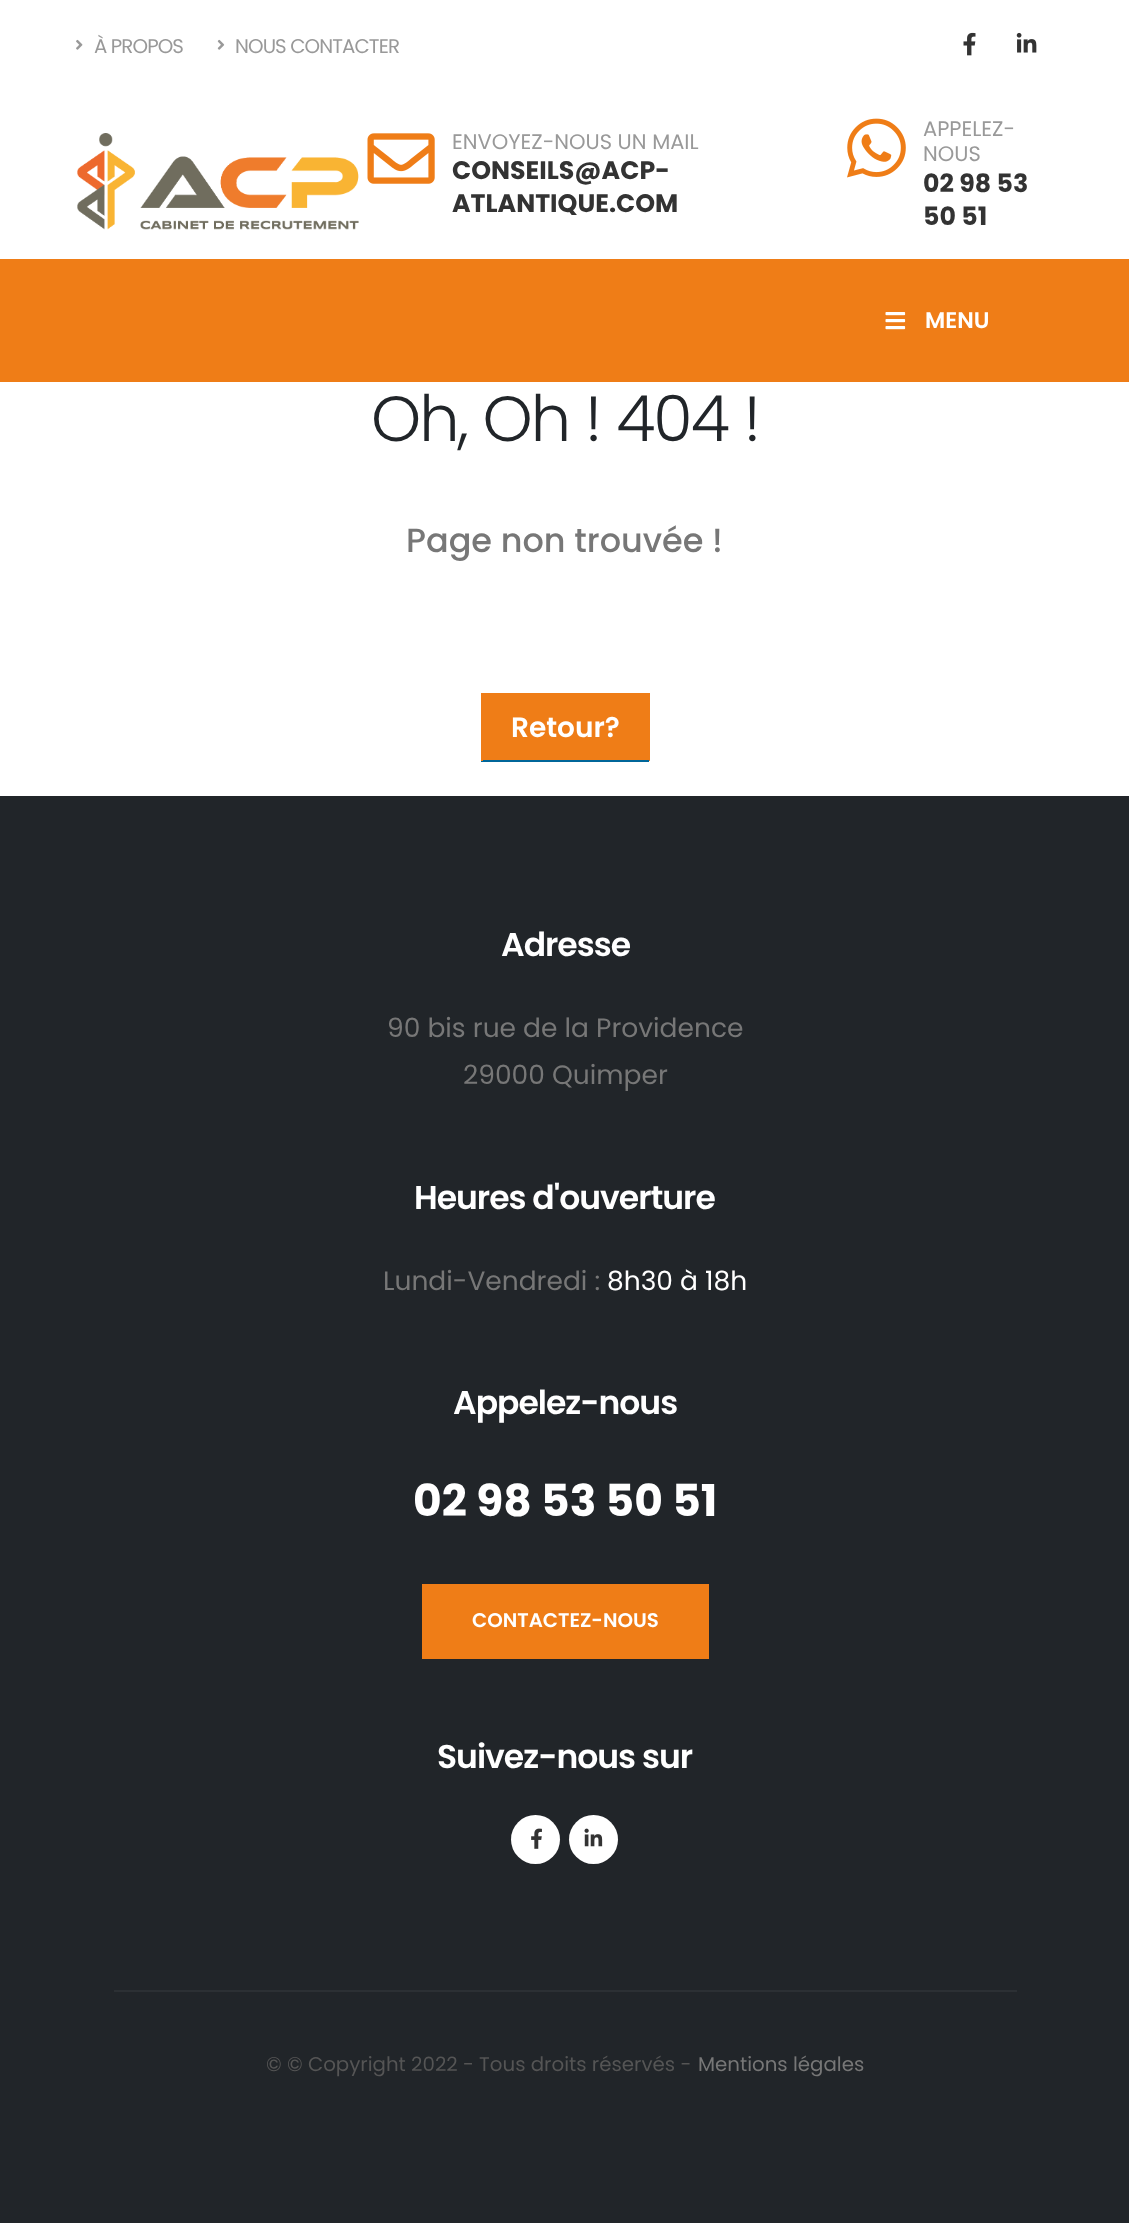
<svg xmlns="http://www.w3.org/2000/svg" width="1129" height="2223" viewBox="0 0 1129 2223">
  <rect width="100%" height="100%" fill="rgb(255,255,255)"/>
  <image x="76" y="39" width="7" height="11" href="pic1.png"/>
  <text x="94" y="53" font-family="Poppins" font-size="19.8" letter-spacing="-0.9" fill="rgb(153,153,153)">À PROPOS</text>
  <image x="217" y="39" width="8" height="11" href="pic2.png"/>
  <text x="235" y="53" font-family="Poppins" font-size="19.8" letter-spacing="-0.9" fill="rgb(153,153,153)">NOUS CONTACTER</text>
  <image x="963" y="32" width="13" height="24" href="pic3.png"/>
  <image x="1016" y="32" width="21" height="21" href="pic4.png"/>
  <image x="77" y="133" width="282" height="97" href="pic5.png"/>
  <image x="367" y="133" width="68" height="51" href="pic6.png"/>
  <text x="452" y="149" font-family="Poppins" font-size="21" fill="rgb(153,153,153)">ENVOYEZ-NOUS UN MAIL</text>
  <g font-family="Poppins" font-size="25.25" font-weight="bold" fill="rgb(51,51,51)">
    <text>
      <tspan x="452" y="179">CONSEILS@ACP-</tspan>
      <tspan x="452" y="212">ATLANTIQUE.COM</tspan>
    </text>
  </g>
  <image x="847" y="118" width="59" height="60" href="pic7.png"/>
  <g font-family="Poppins" font-size="21" fill="rgb(153,153,153)">
    <text>
      <tspan x="923" y="136">APPELEZ-</tspan>
      <tspan x="923" y="161">NOUS</tspan>
    </text>
  </g>
  <g font-family="Poppins" font-size="25.25" font-weight="bold" fill="rgb(51,51,51)">
    <text>
      <tspan x="923" y="192">02 98 53</tspan>
      <tspan x="923" y="225">50 51</tspan>
    </text>
  </g>
  <rect x="0" y="259" width="1129" height="123" fill="rgb(239,125,23)"/>
  <image x="885" y="312" width="21" height="18" href="pic8.png"/>
  <text x="925" y="328" font-family="Poppins" font-size="22.5" font-weight="600" fill="rgb(255,255,255)">MENU</text>
  <text x="371" y="441" font-family="Poppins" font-size="63.75" font-weight="300" letter-spacing="-1.9" fill="rgb(33,37,41)">Oh, Oh ! 404 !</text>
  <text x="406" y="552" font-family="Poppins" font-size="33.5" font-weight="500" fill="rgb(119,119,119)">Page non trouvée !</text>
  <rect x="483" y="693" width="165" height="67" fill="rgb(239,125,23)"/>
  <rect x="648" y="693" width="2" height="68" fill="rgb(239,125,23)"/>
  <rect x="481" y="760" width="168" height="2" fill="rgb(0,102,153)"/>
  <rect x="481" y="693" width="2" height="68" fill="rgb(239,125,23)"/>
  <text x="511" y="737" font-family="Poppins" font-size="28" font-weight="600" fill="rgb(255,255,255)">Retour?</text>
  <rect x="0" y="796" width="1129" height="1427" fill="rgb(33,37,41)"/>
  <text x="501" y="956" font-family="Poppins" font-size="33" font-weight="600" letter-spacing="-1" fill="rgb(255,255,255)">Adresse</text>
  <g font-family="Poppins" font-size="26.5" fill="rgb(119,119,119)">
    <text x="387" y="1037">90 bis rue de la Providence</text>
    <text x="463" y="1084">29000 Quimper</text>
  </g>
  <text x="414" y="1209" font-family="Poppins" font-size="33" font-weight="600" letter-spacing="-1" fill="rgb(255,255,255)">Heures d'ouverture</text>
  <text x="383" y="1290" font-family="Poppins" font-size="26.5" fill="rgb(119,119,119)">Lundi-Vendredi :</text>
  <text x="607" y="1290" font-family="Poppins" font-size="26.5" fill="rgb(255,255,255)">8h30 à 18h</text>
  <text x="453" y="1414" font-family="Poppins" font-size="33" font-weight="600" letter-spacing="-1" fill="rgb(255,255,255)">Appelez-nous</text>
  <text x="413" y="1516" font-family="Poppins" font-size="44" font-weight="bold" fill="rgb(255,255,255)">02 98 53 50 51</text>
  <rect x="422" y="1584" width="287" height="75" fill="rgb(239,125,23)"/>
  <text x="472" y="1627" font-family="Poppins" font-size="19.8" font-weight="600" fill="rgb(255,255,255)">CONTACTEZ-NOUS</text>
  <text x="437" y="1768" font-family="Poppins" font-size="33" font-weight="600" letter-spacing="-1" fill="rgb(255,255,255)">Suivez-nous sur</text>
  <circle cx="535.5" cy="1839.5" r="24.5" fill="rgb(255,255,255)"/>
  <image x="531" y="1828" width="11" height="21" href="pic9.png"/>
  <circle cx="593.5" cy="1839.5" r="24.5" fill="rgb(255,255,255)"/>
  <image x="584" y="1828" width="19" height="19" href="pic10.png"/>
  <rect x="114" y="1990" width="903" height="2" fill="rgb(44,48,52)"/>
  <text x="266" y="2071" font-family="Poppins" font-size="19.8" fill="rgb(85,85,85)">© © Copyright 2022 - Tous droits réservés -</text>
  <text x="698" y="2071" font-family="Poppins" font-size="19.8" fill="rgb(119,119,119)">Mentions légales</text>
</svg>
